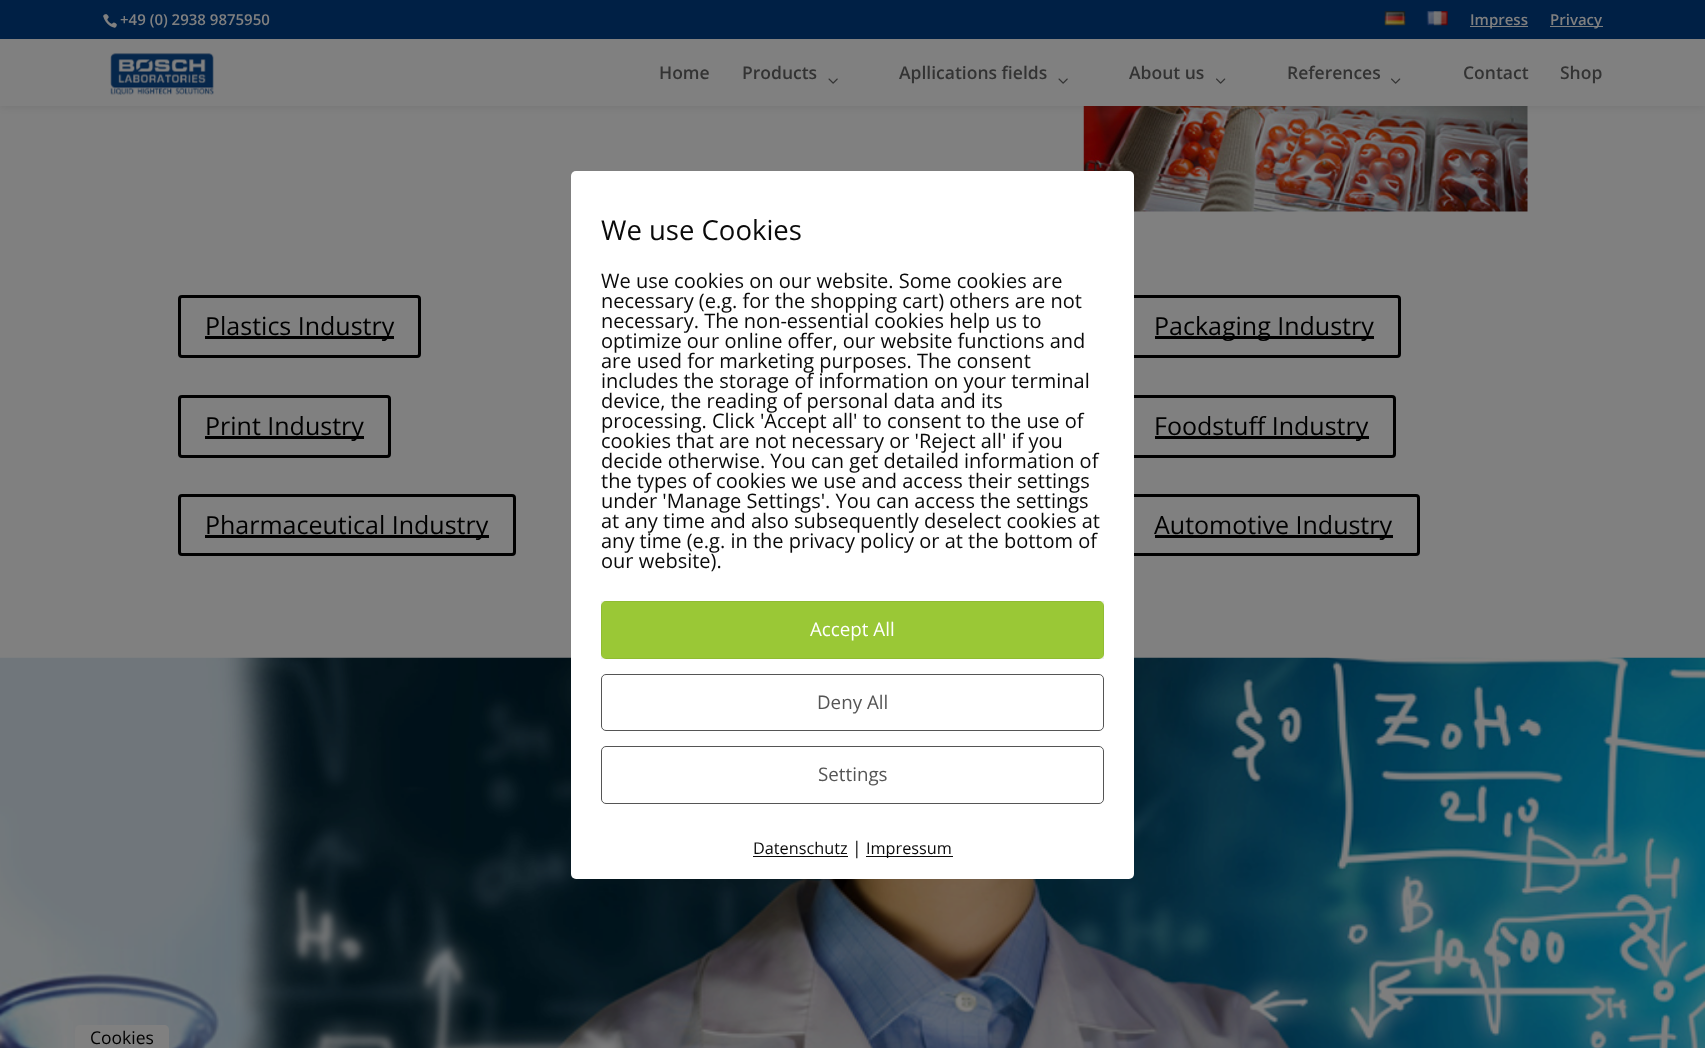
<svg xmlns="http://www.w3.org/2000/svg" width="1705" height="1048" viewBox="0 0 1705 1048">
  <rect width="100%" height="100%" fill="rgb(128,128,128)"/>
  <image x="1083" y="106" width="445" height="106" href="pic7.png"/>
  <rect x="0" y="39" width="1705" height="67" fill="rgba(0,0,0,0.1)" filter="blur(4.5px)"/>
  <rect x="0" y="0" width="1705" height="39" fill="rgb(0,32,69)"/>
  <image x="103" y="14" width="14" height="14" href="pic1.png"/>
  <text x="120" y="25" font-family="Open Sans" font-size="15" font-weight="600" fill="rgb(128,128,128)">+49 (0) 2938 9875950</text>
  <image x="1384" y="11" width="22" height="15" href="pic2.png"/>
  <image x="1426" y="11" width="22" height="15" href="pic3.png"/>
  <rect x="1470" y="26" width="58" height="1" fill="rgb(128,128,128)"/>
  <text x="1470" y="25" font-family="Open Sans" font-size="15" font-weight="600" fill="rgb(128,128,128)">Impress</text>
  <rect x="1550" y="26" width="53" height="1" fill="rgb(128,128,128)"/>
  <text x="1550" y="25" font-family="Open Sans" font-size="15" font-weight="600" fill="rgb(128,128,128)">Privacy</text>
  <rect x="0" y="39" width="1705" height="67" fill="rgb(128,128,128)"/>
  <image x="110" y="53" width="104" height="42" href="pic4.png"/>
  <g font-family="Open Sans" font-size="17.5" font-weight="600" fill="rgb(51,51,51)">
    <text x="659" y="79">Home</text>
    <text x="742" y="79">Products</text>
  </g>
  <image x="828" y="78" width="10" height="6" href="pic5.png"/>
  <text x="899" y="79" font-family="Open Sans" font-size="17.5" font-weight="600" fill="rgb(51,51,51)">Apllications fields</text>
  <image x="1058" y="78" width="10" height="6" href="pic5.png"/>
  <text x="1129" y="79" font-family="Open Sans" font-size="17.5" font-weight="600" fill="rgb(51,51,51)">About us</text>
  <image x="1216" y="78" width="10" height="6" href="pic6.png"/>
  <text x="1287" y="79" font-family="Open Sans" font-size="17.5" font-weight="600" fill="rgb(51,51,51)">References</text>
  <image x="1391" y="78" width="10" height="6" href="pic6.png"/>
  <g font-family="Open Sans" font-size="17.5" font-weight="600" fill="rgb(51,51,51)">
    <text x="1463" y="79">Contact</text>
    <text x="1560" y="79">Shop</text>
  </g>
  <rect x="179.5" y="296.5" width="240" height="60" rx="2.5" fill="none" stroke="rgb(0,0,0)" stroke-width="3"/>
  <rect x="205" y="336" width="189" height="3" fill="rgb(0,0,0)"/>
  <text x="205" y="335" font-family="Open Sans" font-size="25" fill="rgb(0,0,0)">Plastics Industry</text>
  <rect x="179.5" y="396.5" width="210" height="60" rx="2.5" fill="none" stroke="rgb(0,0,0)" stroke-width="3"/>
  <rect x="205" y="436" width="159" height="3" fill="rgb(0,0,0)"/>
  <text x="205" y="435" font-family="Open Sans" font-size="25" fill="rgb(0,0,0)">Print Industry</text>
  <rect x="179.5" y="495.5" width="335" height="59" rx="2.5" fill="none" stroke="rgb(0,0,0)" stroke-width="3"/>
  <rect x="205" y="535" width="284" height="3" fill="rgb(0,0,0)"/>
  <text x="205" y="534" font-family="Open Sans" font-size="25" fill="rgb(0,0,0)">Pharmaceutical Industry</text>
  <rect x="1129.5" y="296.5" width="270" height="60" rx="2.5" fill="none" stroke="rgb(0,0,0)" stroke-width="3"/>
  <rect x="1155" y="336" width="219" height="3" fill="rgb(0,0,0)"/>
  <text x="1154" y="335" font-family="Open Sans" font-size="25" fill="rgb(0,0,0)">Packaging Industry</text>
  <rect x="1129.5" y="396.5" width="265" height="60" rx="2.5" fill="none" stroke="rgb(0,0,0)" stroke-width="3"/>
  <rect x="1155" y="436" width="214" height="3" fill="rgb(0,0,0)"/>
  <text x="1154" y="435" font-family="Open Sans" font-size="25" fill="rgb(0,0,0)">Foodstuff Industry</text>
  <rect x="1129.5" y="495.5" width="289" height="59" rx="2.5" fill="none" stroke="rgb(0,0,0)" stroke-width="3"/>
  <rect x="1155" y="535" width="238" height="3" fill="rgb(0,0,0)"/>
  <text x="1154" y="534" font-family="Open Sans" font-size="25" fill="rgb(0,0,0)">Automotive Industry</text>
  <image x="0" y="657" width="1705" height="391" href="pic8.png"/>
  <rect x="571" y="171" width="563" height="708" rx="5" fill="rgb(255,255,255)"/>
  <text x="601" y="240" font-family="Open Sans" font-size="27.5" fill="rgb(10,10,10)">We use Cookies</text>
  <g font-family="Open Sans" font-size="20" fill="rgb(10,10,10)">
    <text>
      <tspan x="601" y="288">We use cookies on our website. Some cookies are</tspan>
      <tspan x="601" y="308">necessary (e.g. for the shopping cart) others are not</tspan>
      <tspan x="601" y="328">necessary. The non-essential cookies help us to</tspan>
      <tspan x="601" y="348">optimize our online offer, our website functions and</tspan>
      <tspan x="601" y="368">are used for marketing purposes. The consent</tspan>
      <tspan x="601" y="388">includes the storage of information on your terminal</tspan>
      <tspan x="601" y="408">device, the reading of personal data and its</tspan>
      <tspan x="601" y="428">processing. Click 'Accept all' to consent to the use of</tspan>
      <tspan x="601" y="448">cookies that are not necessary or 'Reject all' if you</tspan>
      <tspan x="601" y="468">decide otherwise. You can get detailed information of</tspan>
      <tspan x="601" y="488">the types of cookies we use and access their settings</tspan>
      <tspan x="601" y="508">under 'Manage Settings'. You can access the settings</tspan>
      <tspan x="601" y="528">at any time and also subsequently deselect cookies at</tspan>
      <tspan x="601" y="548">any time (e.g. in the privacy policy or at the bottom of</tspan>
      <tspan x="601" y="568">our website).</tspan>
    </text>
  </g>
  <rect x="601" y="601" width="503" height="58" rx="5" fill="rgb(154,200,54)"/>
  <rect x="601.5" y="601.5" width="502" height="57" fill="none" stroke="rgba(0,0,0,0.06)"/>
  <text x="810" y="636" font-family="Open Sans" font-size="18.75" fill="rgb(255,255,255)">Accept All</text>
  <rect x="601.5" y="674.5" width="502" height="56" rx="4.5" fill="none" stroke="rgb(85,85,85)"/>
  <text x="817" y="709" font-family="Open Sans" font-size="18.75" fill="rgb(85,85,85)">Deny All</text>
  <rect x="601.5" y="746.5" width="502" height="57" rx="4.5" fill="none" stroke="rgb(85,85,85)"/>
  <text x="818" y="781" font-family="Open Sans" font-size="18.75" fill="rgb(85,85,85)">Settings</text>
  <text x="753" y="854" font-family="Open Sans" font-size="16.25" fill="rgb(10,10,10)">Datenschutz</text>
  <rect x="753" y="856" width="95" height="1" fill="rgb(10,10,10)"/>
  <text x="852" y="854" font-family="Open Sans" font-size="17.5" fill="rgb(10,10,10)">|</text>
  <rect x="866" y="856" width="87" height="1" fill="rgb(10,10,10)"/>
  <text x="866" y="854" font-family="Open Sans" font-size="16.25" fill="rgb(10,10,10)">Impressum</text>
  <path d="M80 1025H164C167 1025 169 1027 169 1030V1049H75V1030C75 1027 77 1025 80 1025Z" fill="rgb(128,128,128)"/>
  <text x="90" y="1044" font-family="Open Sans" font-size="17.5" fill="rgb(0,0,0)">Cookies</text>
</svg>
